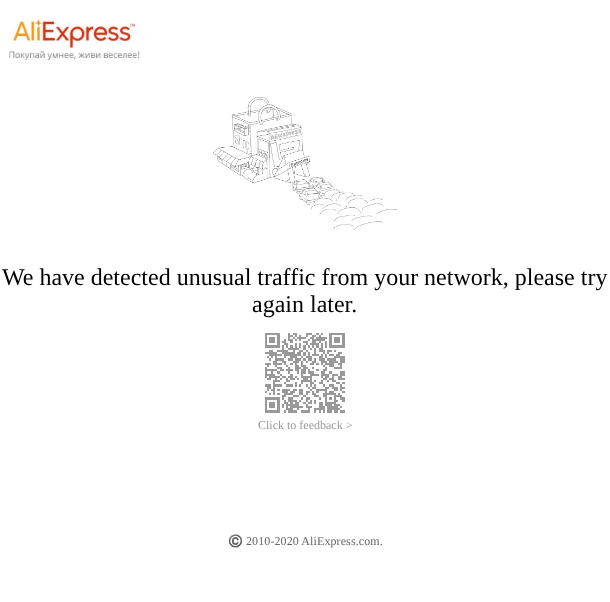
<svg xmlns="http://www.w3.org/2000/svg" width="610" height="602" viewBox="0 0 610 602">
  <rect width="100%" height="100%" fill="rgb(255,255,255)"/>
  <image x="9" y="17" width="132" height="44" href="pic1.png"/>
  <image x="213" y="97" width="184" height="134" href="pic2.png"/>
  <g font-family="Liberation Serif" font-size="24" fill="rgb(0,0,0)">
    <text x="2" y="285">We have detected unusual traffic from your network, please try</text>
    <text x="252" y="312">again later.</text>
  </g>
  <image x="265" y="333" width="80" height="80" href="pic3.png"/>
  <text x="258" y="429" font-family="Liberation Serif" font-size="12" fill="rgb(153,153,153)">Click to feedback &gt;</text>
  <text x="228" y="545" font-family="Noto Color Emoji" font-size="12" letter-spacing="0.1" fill="rgb(102,102,102)">©️</text>
  <text x="246" y="545" font-family="Liberation Serif" font-size="12" letter-spacing="0.1" fill="rgb(102,102,102)">2010-2020 AliExpress.com.</text>
</svg>
